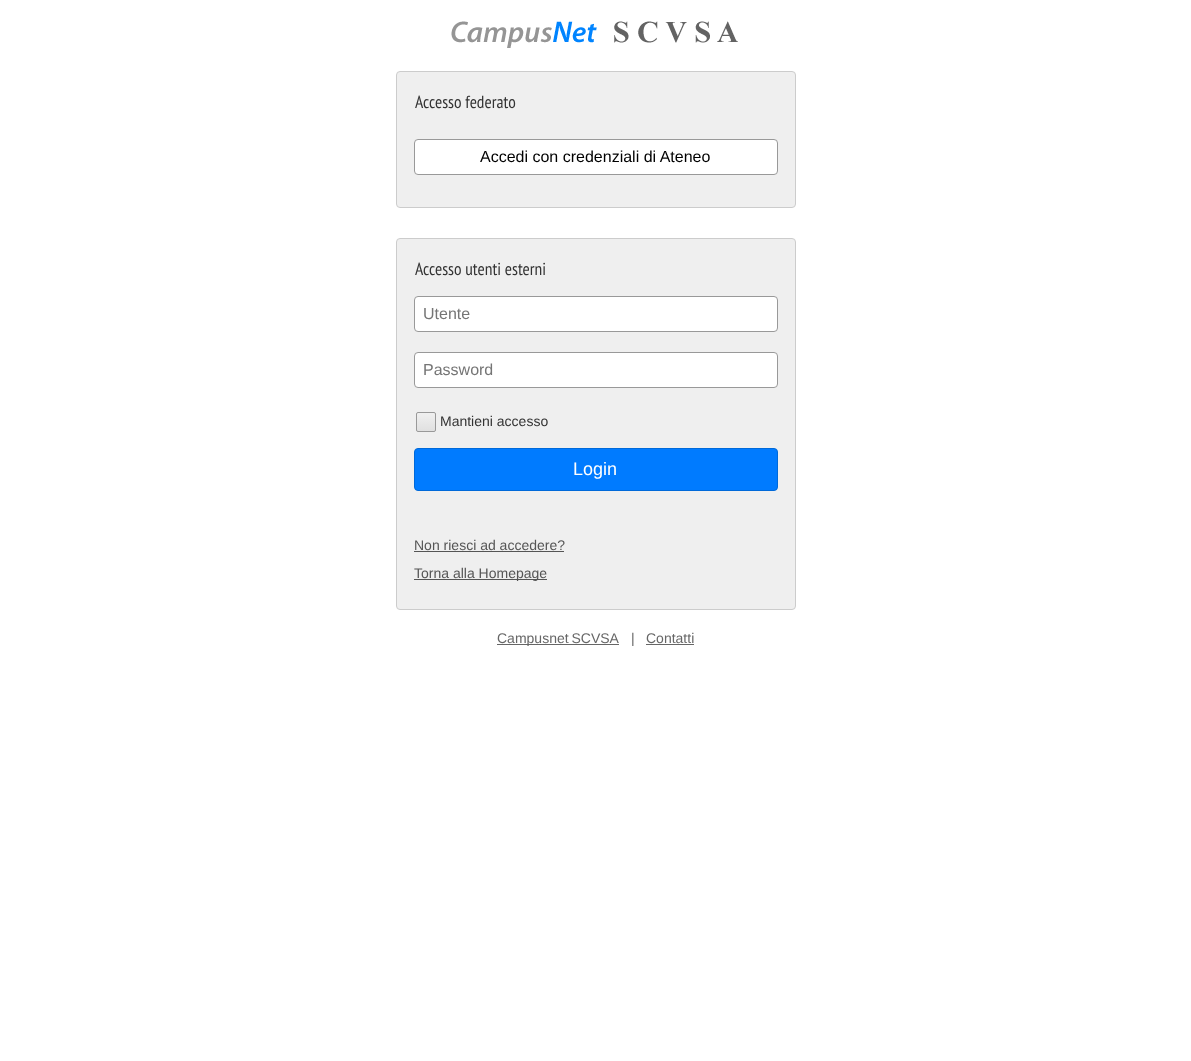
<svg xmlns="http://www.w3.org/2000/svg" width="1191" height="1061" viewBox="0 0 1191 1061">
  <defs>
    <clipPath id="clip1"><rect x="416" y="412" width="20" height="20" rx="2"/></clipPath>
    <linearGradient id="g1" gradientUnits="userSpaceOnUse" x1="426" y1="413" x2="426" y2="431"><stop offset="0" stop-color="rgb(240,240,240)"/><stop offset="1" stop-color="rgb(224,224,224)"/></linearGradient>
  </defs>
  <rect width="100%" height="100%" fill="rgb(255,255,255)"/>
  <image x="451" y="21" width="287" height="27" href="pic1.png"/>
  <rect x="396.5" y="71.5" width="399" height="136" rx="3.5" fill="rgb(239,239,239)" stroke="rgb(204,204,204)"/>
  <text x="415" y="108" font-family="PT Sans Narrow" font-size="17.5" fill="rgb(51,51,51)">Accesso federato</text>
  <rect x="414.5" y="139.5" width="363" height="35" rx="3.5" fill="rgb(255,255,255)" stroke="rgb(153,153,153)"/>
  <text x="480" y="162" font-family="Liberation Sans" font-size="16" fill="rgb(0,0,0)">Accedi con credenziali di Ateneo</text>
  <rect x="396.5" y="238.5" width="399" height="371" rx="3.5" fill="rgb(239,239,239)" stroke="rgb(204,204,204)"/>
  <text x="415" y="275" font-family="PT Sans Narrow" font-size="17.5" fill="rgb(51,51,51)">Accesso utenti esterni</text>
  <rect x="414.5" y="296.5" width="363" height="35" rx="3.5" fill="rgb(255,255,255)" stroke="rgb(153,153,153)"/>
  <text x="423" y="319" font-family="Liberation Sans" font-size="16" fill="rgb(117,117,117)">Utente</text>
  <rect x="414.5" y="352.5" width="363" height="35" rx="3.5" fill="rgb(255,255,255)" stroke="rgb(153,153,153)"/>
  <text x="423" y="375" font-family="Liberation Sans" font-size="16" fill="rgb(117,117,117)">Password</text>
  <g clip-path="url(#clip1)">
    <rect x="416" y="413" width="20" height="18" fill="url(#g1)"/>
  </g>
  <rect x="416.5" y="412.5" width="19" height="19" rx="1.5" fill="none" stroke="rgb(153,153,153)"/>
  <text x="440" y="426" font-family="Liberation Sans" font-size="14" fill="rgb(51,51,51)">Mantieni accesso</text>
  <rect x="414.5" y="448.5" width="363" height="42" rx="3.5" fill="rgb(0,123,255)" stroke="rgb(0,105,217)"/>
  <text x="573" y="475" font-family="Liberation Sans" font-size="18" fill="rgb(255,255,255)">Login</text>
  <text x="414" y="550" font-family="Liberation Sans" font-size="14" fill="rgb(85,85,85)">Non riesci ad accedere?</text>
  <rect x="414" y="551" width="150" height="1" fill="rgb(85,85,85)"/>
  <rect x="414" y="579" width="133" height="1" fill="rgb(85,85,85)"/>
  <text x="414" y="578" font-family="Liberation Sans" font-size="14" fill="rgb(85,85,85)">Torna alla Homepage</text>
  <rect x="497" y="644" width="122" height="1" fill="rgb(102,102,102)"/>
  <g font-family="Liberation Sans" font-size="14" fill="rgb(102,102,102)">
    <text x="497" y="643" word-spacing="-1">Campusnet SCVSA</text>
    <text x="631" y="643">|</text>
    <text x="646" y="643">Contatti</text>
  </g>
  <rect x="646" y="644" width="48" height="1" fill="rgb(102,102,102)"/>
</svg>
